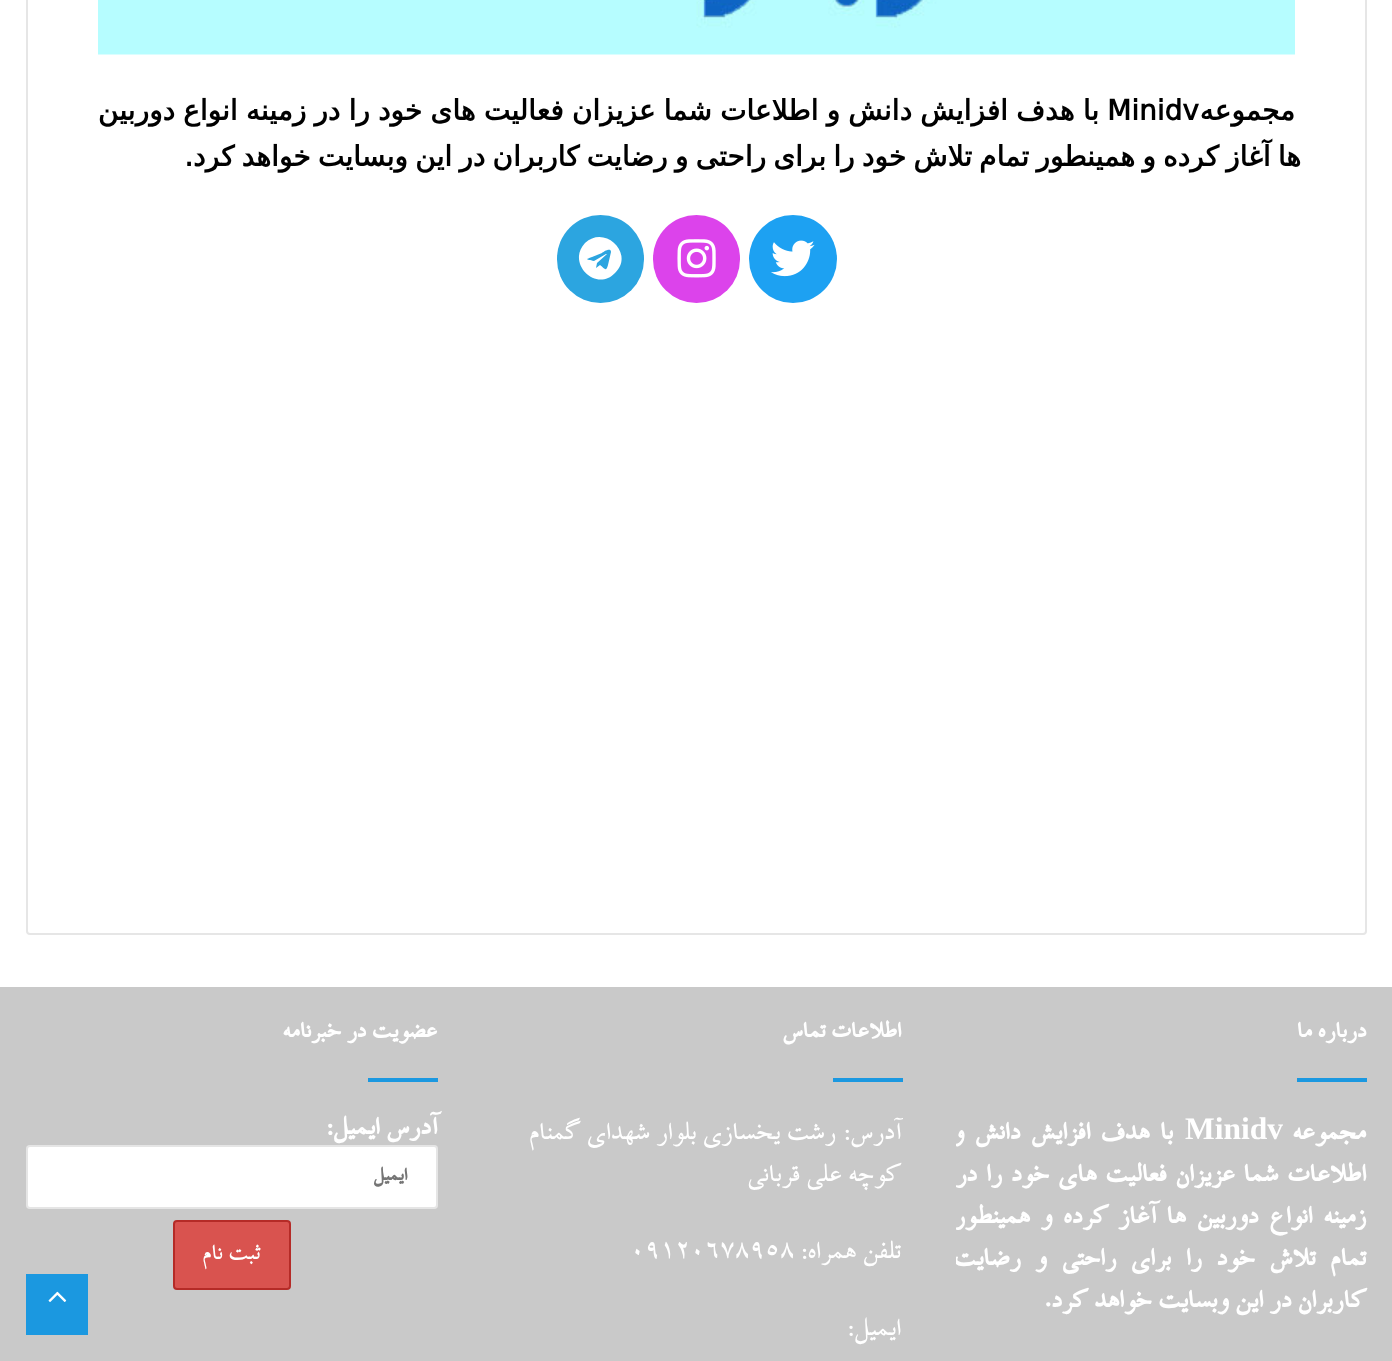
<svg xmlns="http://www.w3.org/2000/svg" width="1392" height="1361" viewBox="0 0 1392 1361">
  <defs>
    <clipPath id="clip1"><rect x="956" y="1113" width="411" height="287"/></clipPath>
    <clipPath id="clip2"><rect x="490" y="1113" width="413" height="238"/></clipPath>
  </defs>
  <rect width="100%" height="100%" fill="rgb(255,255,255)"/>
  <rect x="27" y="-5" width="1339" height="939" rx="3" fill="none" stroke="rgb(230,230,230)" stroke-width="2"/>
  <image x="98" y="0" width="1197" height="55" href="pic1.png"/>
  <text x="1295" y="120" font-family="DejaVu Sans" font-size="28" font-weight="bold" direction="rtl" fill="rgb(0,0,0)">مجموعه</text>
  <text x="1107" y="120" font-family="DejaVu Sans" font-size="28" font-weight="bold" fill="rgb(0,0,0)">Minidv</text>
  <g font-family="DejaVu Sans" font-size="28" font-weight="bold" direction="rtl" fill="rgb(0,0,0)">
    <text x="1099" y="120" word-spacing="-0.75">با هدف افزایش دانش و اطلاعات شما عزیزان فعالیت های خود را در زمینه انواع دوربین</text>
    <text x="1301" y="166" word-spacing="-1.7">ها آغاز کرده و همینطور تمام تلاش خود را برای راحتی و رضایت کاربران در این وبسایت خواهد کرد.</text>
  </g>
  <circle cx="793" cy="259" r="44" fill="rgb(29,161,242)"/>
  <image x="771" y="240" width="44" height="37" href="pic2.png"/>
  <rect x="653" y="215" width="87" height="88" rx="43.5" fill="rgb(220,67,235)"/>
  <image x="677" y="239" width="39" height="39" href="pic3.png"/>
  <rect x="557" y="215" width="87" height="88" rx="43.5" fill="rgb(44,165,224)"/>
  <path d="M585 243C605 224 635 254 615 273C596 293 566 263 585 243ZM611 252C611 247 603 252 602 253L592 257C584 260 587 259 594 261L606 254H607L597 263L596 268L600 265C605 269 606 272 608 265Z" fill="rgb(255,255,255)"/>
  <rect x="0" y="987" width="1392" height="374" fill="rgb(201,201,201)"/>
  <text x="1367" y="1037" font-family="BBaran" font-size="28" font-weight="bold" direction="rtl" fill="rgb(255,255,255)">درباره ما</text>
  <rect x="1297" y="1078" width="70" height="4" fill="rgb(27,152,224)"/>
  <text x="1367" y="1139" font-family="BBaran" font-size="31.5" font-weight="bold" direction="rtl" fill="rgb(255,255,255)">مجموعه</text>
  <text x="1185" y="1139" font-family="Liberation Serif" font-size="31.5" font-weight="bold" fill="rgb(255,255,255)">Minidv</text>
  <g clip-path="url(#clip1)">
    <g font-family="BBaran" font-size="31.5" font-weight="bold" direction="rtl" fill="rgb(255,255,255)">
      <text x="1174" y="1139" word-spacing="4">با هدف افزایش دانش و</text>
      <text>
        <tspan x="1367" y="1181" word-spacing="2.5">اطلاعات شما عزیزان فعالیت های خود را در</tspan>
        <tspan x="1367" y="1223" word-spacing="4.25">زمینه انواع دوربین ها آغاز کرده و همینطور</tspan>
        <tspan x="1367" y="1265" word-spacing="8.25">تمام تلاش خود را برای راحتی و رضایت</tspan>
      </text>
    </g>
  </g>
  <text x="1367" y="1307" font-family="BBaran" font-size="31.5" font-weight="bold" direction="rtl" fill="rgb(255,255,255)">کاربران در این وبسایت خواهد کرد.</text>
  <text x="902" y="1037" font-family="BBaran" font-size="28" font-weight="bold" direction="rtl" fill="rgb(255,255,255)">اطلاعات تماس</text>
  <rect x="833" y="1078" width="70" height="4" fill="rgb(27,152,224)"/>
  <g clip-path="url(#clip2)">
    <text x="902" y="1139" font-family="BBaran" font-size="31.5" direction="rtl" fill="rgb(255,255,255)">آدرس: رشت یخسازی بلوار شهدای گمنام</text>
  </g>
  <g font-family="BBaran" font-size="31.5" direction="rtl" fill="rgb(255,255,255)">
    <text x="902" y="1181">کوچه علی قربانی</text>
    <text x="902" y="1258">تلفن همراه:</text>
  </g>
  <text x="630" y="1258" font-family="BBaran" font-size="31.5" fill="rgb(255,255,255)">09120678958</text>
  <text x="902" y="1335" font-family="BBaran" font-size="31.5" direction="rtl" fill="rgb(255,255,255)">ایمیل:</text>
  <text x="438" y="1037" font-family="BBaran" font-size="28" font-weight="bold" direction="rtl" fill="rgb(255,255,255)">عضویت در خبرنامه</text>
  <rect x="368" y="1078" width="70" height="4" fill="rgb(27,152,224)"/>
  <text x="438" y="1134" font-family="BBaran" font-size="31.5" font-weight="bold" direction="rtl" fill="rgb(255,255,255)">آدرس ایمیل:</text>
  <rect x="26" y="1145" width="412" height="64" rx="4" fill="rgb(255,255,255)"/>
  <rect x="27" y="1146" width="410" height="62" rx="3" fill="none" stroke="rgba(0,0,0,0.1)" stroke-width="2"/>
  <text x="408" y="1180" font-family="BBaran" font-size="23" font-weight="bold" direction="rtl" fill="rgb(117,117,117)">ایمیل</text>
  <rect x="174" y="1221" width="116" height="68" rx="3" fill="rgb(217,83,79)" stroke="rgb(181,43,39)" stroke-width="2"/>
  <text x="261" y="1259" font-family="BBaran" font-size="28" direction="rtl" fill="rgb(255,255,255)">ثبت نام</text>
  <rect x="26" y="1274" width="62" height="61" fill="rgb(27,152,224)"/>
  <image x="48" y="1291" width="19" height="11" href="pic4.png"/>
</svg>
